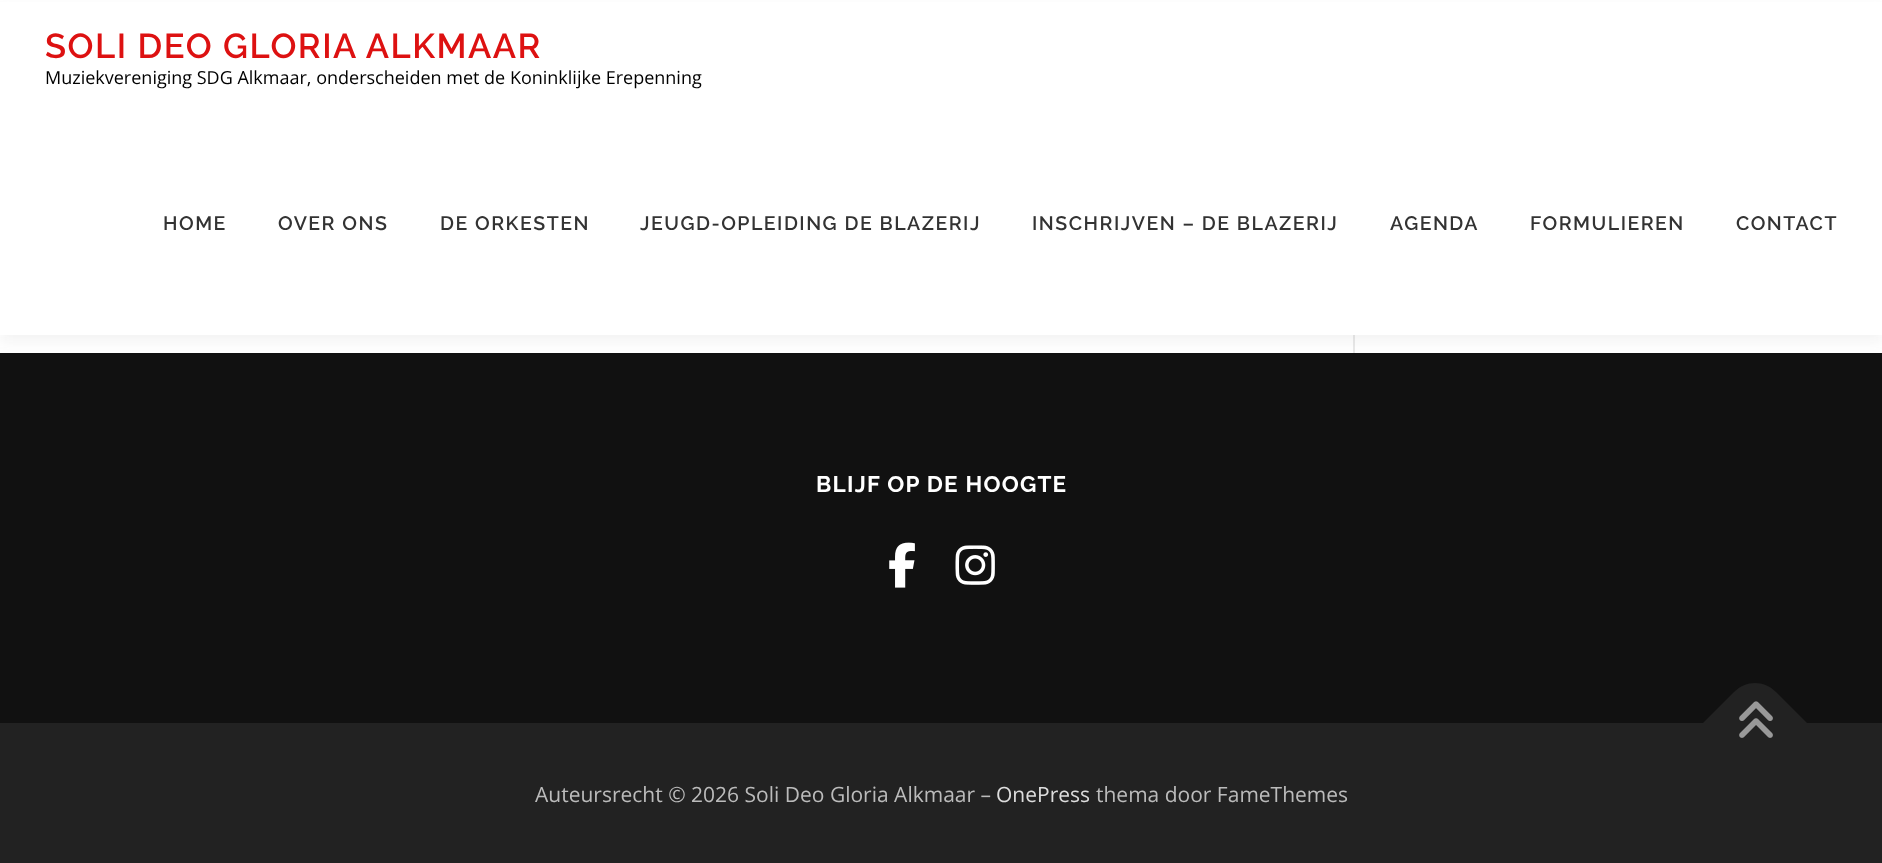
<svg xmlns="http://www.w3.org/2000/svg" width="1882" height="863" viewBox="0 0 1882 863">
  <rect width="100%" height="100%" fill="rgb(255,255,255)"/>
  <rect x="1353" y="335" width="2" height="18" fill="rgb(233,233,233)"/>
  <rect x="0" y="353" width="1882" height="370" fill="rgb(17,17,17)"/>
  <rect x="0" y="8" width="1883" height="334" fill="rgba(50,50,50,0.06)" filter="blur(7.5px)"/>
  <rect x="0" y="2" width="1882" height="333" fill="rgb(255,255,255)"/>
  <text x="45" y="58" font-family="Raleway" font-size="34.5" font-weight="600" letter-spacing="1.5" fill="rgb(221,17,17)">SOLI DEO GLORIA ALKMAAR</text>
  <text x="45" y="84" font-family="Open Sans" font-size="18" fill="rgb(0,0,0)">Muziekvereniging SDG Alkmaar, onderscheiden met de Koninklijke Erepenning</text>
  <g font-family="Raleway" font-size="19.5" font-weight="600" letter-spacing="1.5" fill="rgb(51,51,51)">
    <text x="163" y="230">HOME</text>
    <text x="278" y="230">OVER ONS</text>
    <text x="440" y="230">DE ORKESTEN</text>
    <text x="640" y="230">JEUGD-OPLEIDING DE BLAZERIJ</text>
    <text x="1032" y="230">INSCHRIJVEN – DE BLAZERIJ</text>
    <text x="1390" y="230">AGENDA</text>
    <text x="1530" y="230">FORMULIEREN</text>
    <text x="1736" y="230">CONTACT</text>
  </g>
  <text x="816" y="492" font-family="Raleway" font-size="22.5" font-weight="bold" letter-spacing="1.25" fill="rgb(255,255,255)">BLIJF OP DE HOOGTE</text>
  <image x="889" y="542" width="26" height="46" href="pic1.png"/>
  <image x="955" y="545" width="40" height="40" href="pic2.png"/>
  <rect x="0" y="723" width="1882" height="140" fill="rgb(34,34,34)"/>
  <path d="M1702 724L1734 692C1746 680 1764 680 1776 692L1808 724L1755 777Z" fill="rgb(34,34,34)"/>
  <image x="1739" y="701" width="34" height="37" href="pic3.png"/>
  <text x="535" y="802" font-family="Open Sans" font-size="21" fill="rgb(187,187,187)">Auteursrecht © 2026 Soli Deo Gloria Alkmaar –</text>
  <text x="996" y="802" font-family="Open Sans" font-size="21" fill="rgb(221,221,221)">OnePress</text>
  <text x="1096" y="802" font-family="Open Sans" font-size="21" fill="rgb(187,187,187)">thema door FameThemes</text>
</svg>
